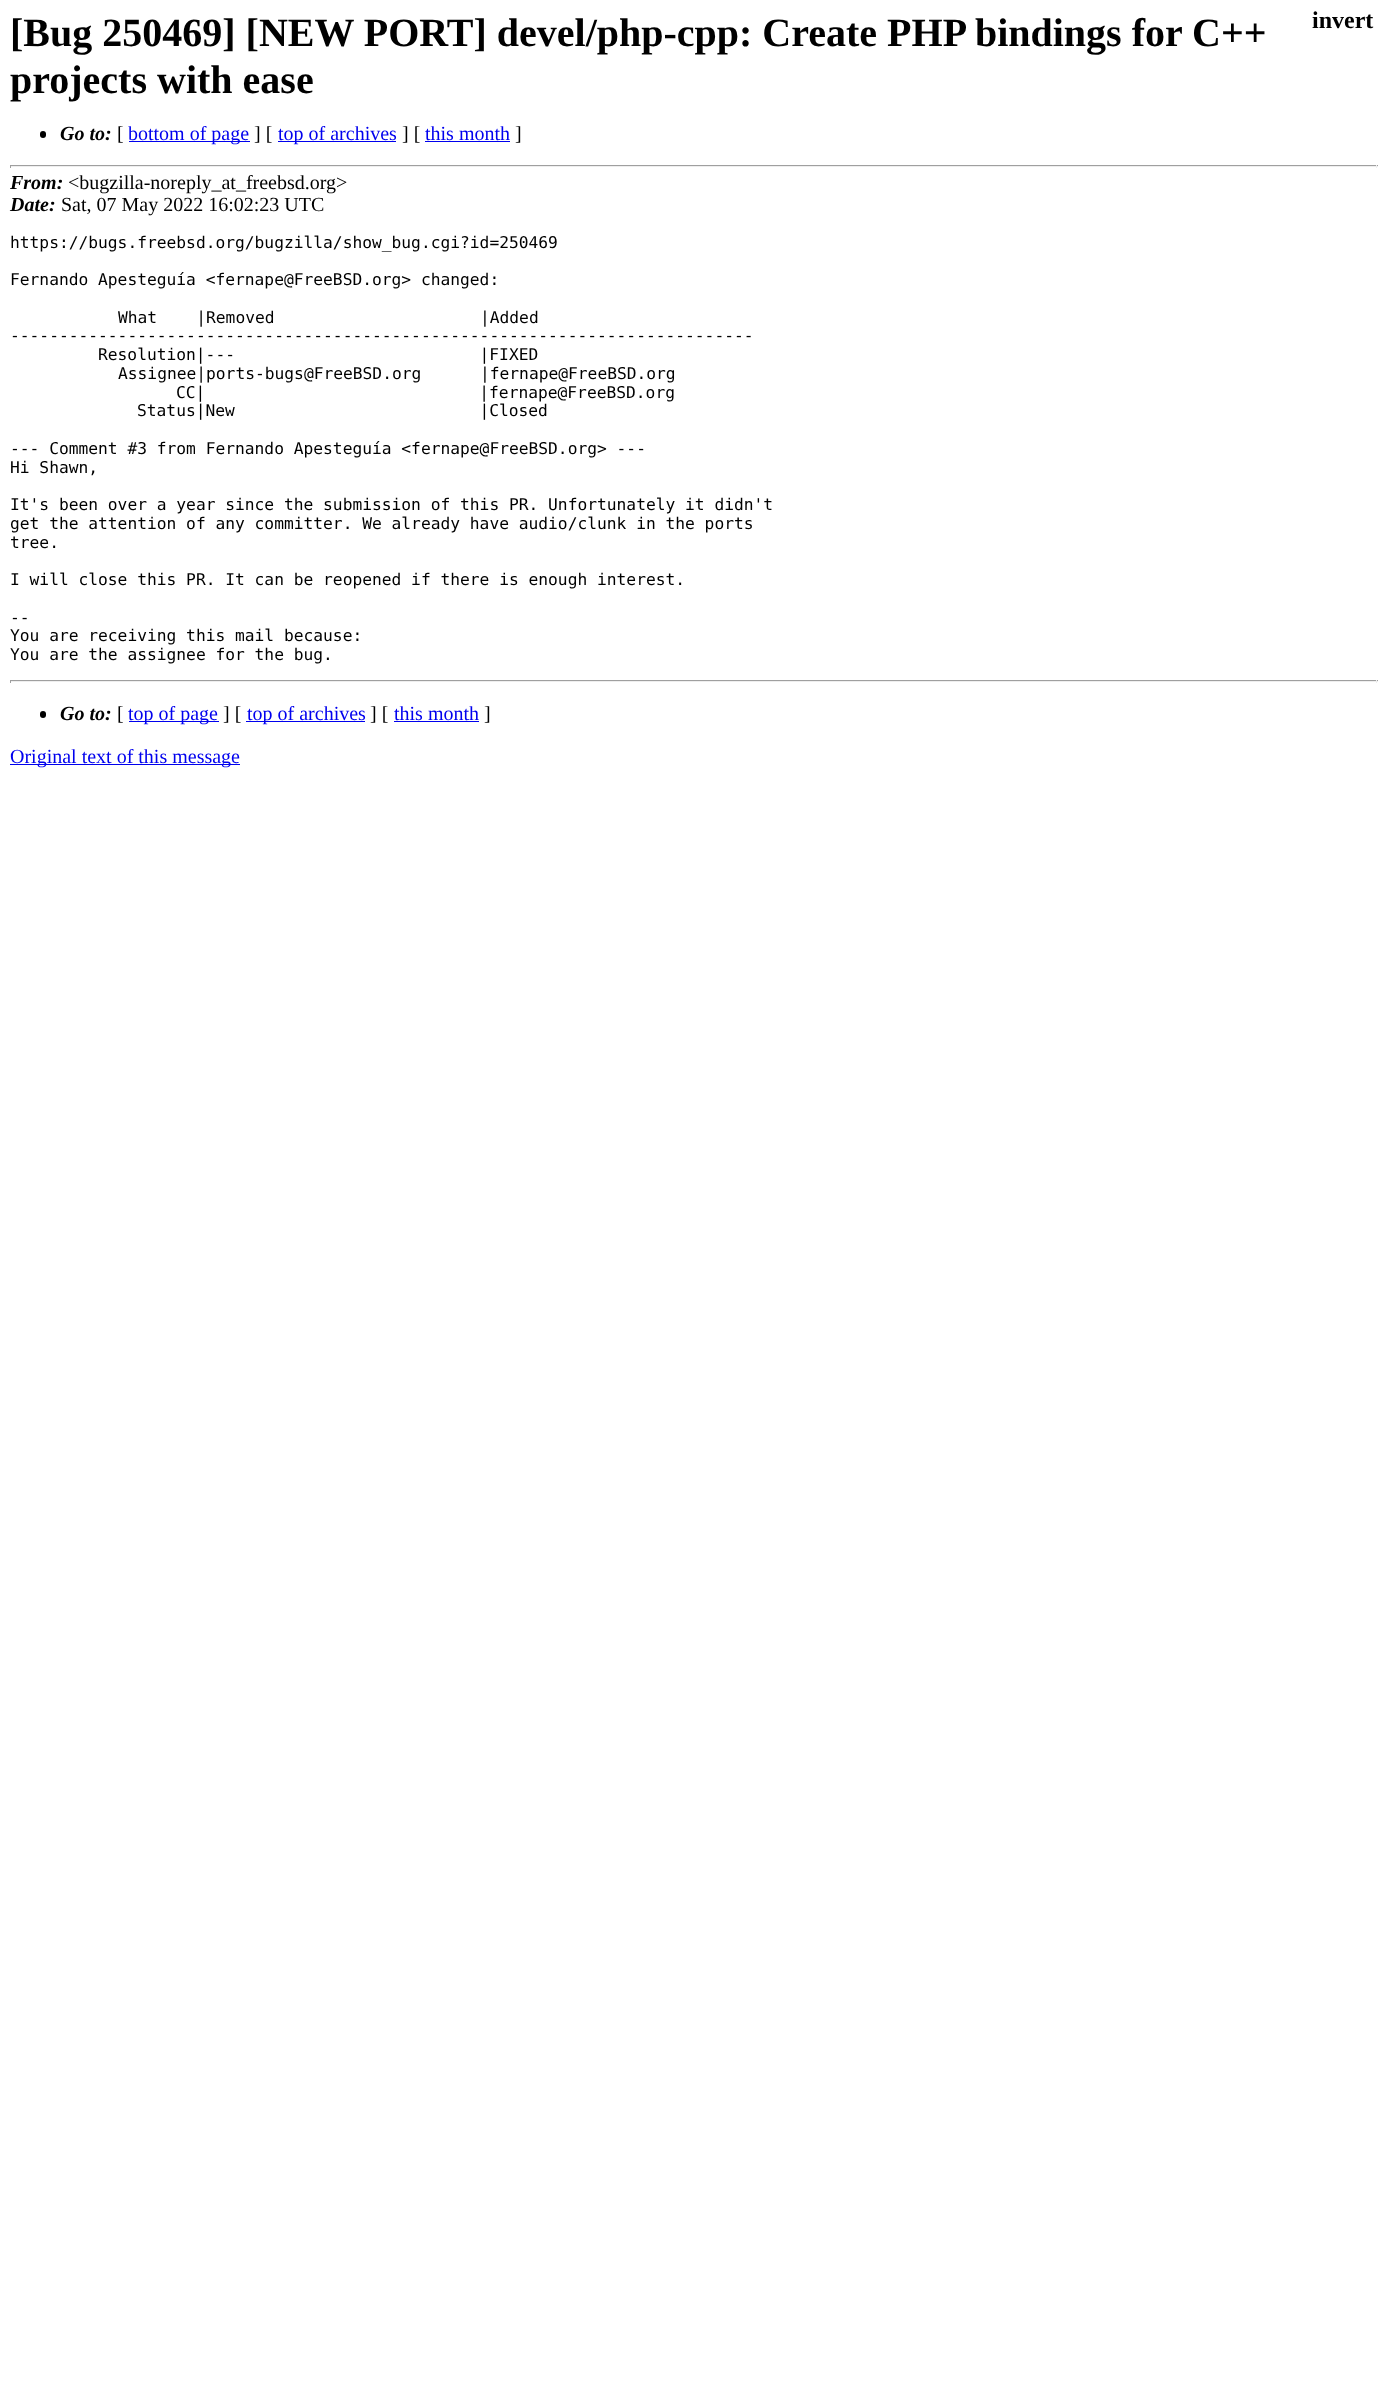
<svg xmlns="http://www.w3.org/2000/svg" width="1387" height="2384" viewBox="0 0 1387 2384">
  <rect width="100%" height="100%" fill="rgb(255,255,255)"/>
  <g font-family="Liberation Serif" font-size="40" font-weight="bold" fill="rgb(0,0,0)">
    <text>
      <tspan x="10" y="46">[Bug 250469] [NEW PORT] devel/php-cpp: Create PHP bindings for C++</tspan>
      <tspan x="10" y="93">projects with ease</tspan>
    </text>
  </g>
  <rect x="40" y="131" width="6" height="7" rx="3" fill="rgb(0,0,0)"/>
  <text x="60" y="140" font-family="Liberation Serif" font-size="20" font-weight="bold" font-style="italic" fill="rgb(0,0,0)">Go to:</text>
  <text x="117" y="140" font-family="Liberation Serif" font-size="20" fill="rgb(0,0,0)">[</text>
  <rect x="129" y="141" width="121" height="1" fill="rgb(0,0,238)"/>
  <text x="128" y="140" font-family="Liberation Serif" font-size="20" fill="rgb(0,0,238)">bottom of page</text>
  <text x="254" y="140" font-family="Liberation Serif" font-size="20" fill="rgb(0,0,0)">] [</text>
  <rect x="278" y="141" width="118" height="1" fill="rgb(0,0,238)"/>
  <text x="278" y="140" font-family="Liberation Serif" font-size="20" fill="rgb(0,0,238)">top of archives</text>
  <text x="402" y="140" font-family="Liberation Serif" font-size="20" fill="rgb(0,0,0)">] [</text>
  <text x="425" y="140" font-family="Liberation Serif" font-size="20" fill="rgb(0,0,238)">this month</text>
  <rect x="425" y="141" width="85" height="1" fill="rgb(0,0,238)"/>
  <text x="515" y="140" font-family="Liberation Serif" font-size="20" fill="rgb(0,0,0)">]</text>
  <rect x="10" y="165" width="1368" height="1" fill="rgb(159,159,159)"/>
  <rect x="1376" y="165" width="1" height="3" fill="rgb(238,238,238)"/>
  <rect x="10" y="166" width="1368" height="1" fill="rgb(238,238,238)"/>
  <rect x="10" y="165" width="1" height="3" fill="rgb(159,159,159)"/>
  <text x="1312" y="28" font-family="Liberation Serif" font-size="24" font-weight="bold" fill="rgb(0,0,0)">invert</text>
  <text x="10" y="189" font-family="Liberation Serif" font-size="20" font-weight="bold" font-style="italic" fill="rgb(0,0,0)">From:</text>
  <text x="68" y="189" font-family="Liberation Serif" font-size="20" fill="rgb(0,0,0)">&lt;bugzilla-noreply_at_freebsd.org&gt;</text>
  <text x="10" y="211" font-family="Liberation Serif" font-size="20" font-weight="bold" font-style="italic" fill="rgb(0,0,0)">Date:</text>
  <text x="61" y="211" font-family="Liberation Serif" font-size="20" fill="rgb(0,0,0)">Sat, 07 May 2022 16:02:23 UTC</text>
  <g font-family="DejaVu Sans Mono" font-size="16.25" fill="rgb(0,0,0)">
    <text x="10" y="248">https://bugs.freebsd.org/bugzilla/show_bug.cgi?id=250469</text>
    <text x="10" y="285">Fernando Apesteguía &lt;fernape@FreeBSD.org&gt; changed:</text>
    <text x="118" y="323" xml:space="preserve">What    |Removed                     |Added</text>
    <text x="10" y="341">----------------------------------------------------------------------------</text>
    <text x="98" y="360" xml:space="preserve">Resolution|---                         |FIXED</text>
    <text x="118" y="379" xml:space="preserve">Assignee|ports-bugs@FreeBSD.org      |fernape@FreeBSD.org</text>
    <text x="176" y="398" xml:space="preserve">CC|                            |fernape@FreeBSD.org</text>
    <text x="137" y="416" xml:space="preserve">Status|New                         |Closed</text>
    <text>
      <tspan x="10" y="454">--- Comment #3 from Fernando Apesteguía &lt;fernape@FreeBSD.org&gt; ---</tspan>
      <tspan x="10" y="473">Hi Shawn,</tspan>
    </text>
    <text>
      <tspan x="10" y="510">It's been over a year since the submission of this PR. Unfortunately it didn't</tspan>
      <tspan x="10" y="529">get the attention of any committer. We already have audio/clunk in the ports</tspan>
      <tspan x="10" y="548">tree.</tspan>
    </text>
    <text x="10" y="585">I will close this PR. It can be reopened if there is enough interest.</text>
    <text>
      <tspan x="10" y="623">--</tspan>
      <tspan x="10" y="641">You are receiving this mail because:</tspan>
      <tspan x="10" y="660">You are the assignee for the bug.</tspan>
    </text>
  </g>
  <rect x="10" y="680" width="1368" height="1" fill="rgb(159,159,159)"/>
  <rect x="1376" y="680" width="1" height="3" fill="rgb(238,238,238)"/>
  <rect x="10" y="681" width="1368" height="1" fill="rgb(238,238,238)"/>
  <rect x="10" y="680" width="1" height="3" fill="rgb(159,159,159)"/>
  <rect x="40" y="711" width="6" height="7" rx="3" fill="rgb(0,0,0)"/>
  <text x="60" y="720" font-family="Liberation Serif" font-size="20" font-weight="bold" font-style="italic" fill="rgb(0,0,0)">Go to:</text>
  <text x="117" y="720" font-family="Liberation Serif" font-size="20" fill="rgb(0,0,0)">[</text>
  <rect x="129" y="721" width="90" height="1" fill="rgb(0,0,238)"/>
  <text x="128" y="720" font-family="Liberation Serif" font-size="20" fill="rgb(0,0,238)">top of page</text>
  <text x="223" y="720" font-family="Liberation Serif" font-size="20" fill="rgb(0,0,0)">] [</text>
  <rect x="246" y="721" width="119" height="1" fill="rgb(0,0,238)"/>
  <text x="247" y="720" font-family="Liberation Serif" font-size="20" fill="rgb(0,0,238)">top of archives</text>
  <text x="370" y="720" font-family="Liberation Serif" font-size="20" fill="rgb(0,0,0)">] [</text>
  <text x="394" y="720" font-family="Liberation Serif" font-size="20" fill="rgb(0,0,238)">this month</text>
  <rect x="394" y="721" width="85" height="1" fill="rgb(0,0,238)"/>
  <text x="484" y="720" font-family="Liberation Serif" font-size="20" fill="rgb(0,0,0)">]</text>
  <rect x="10" y="764" width="230" height="1" fill="rgb(0,0,238)"/>
  <text x="10" y="763" font-family="Liberation Serif" font-size="20" fill="rgb(0,0,238)">Original text of this message</text>
</svg>
